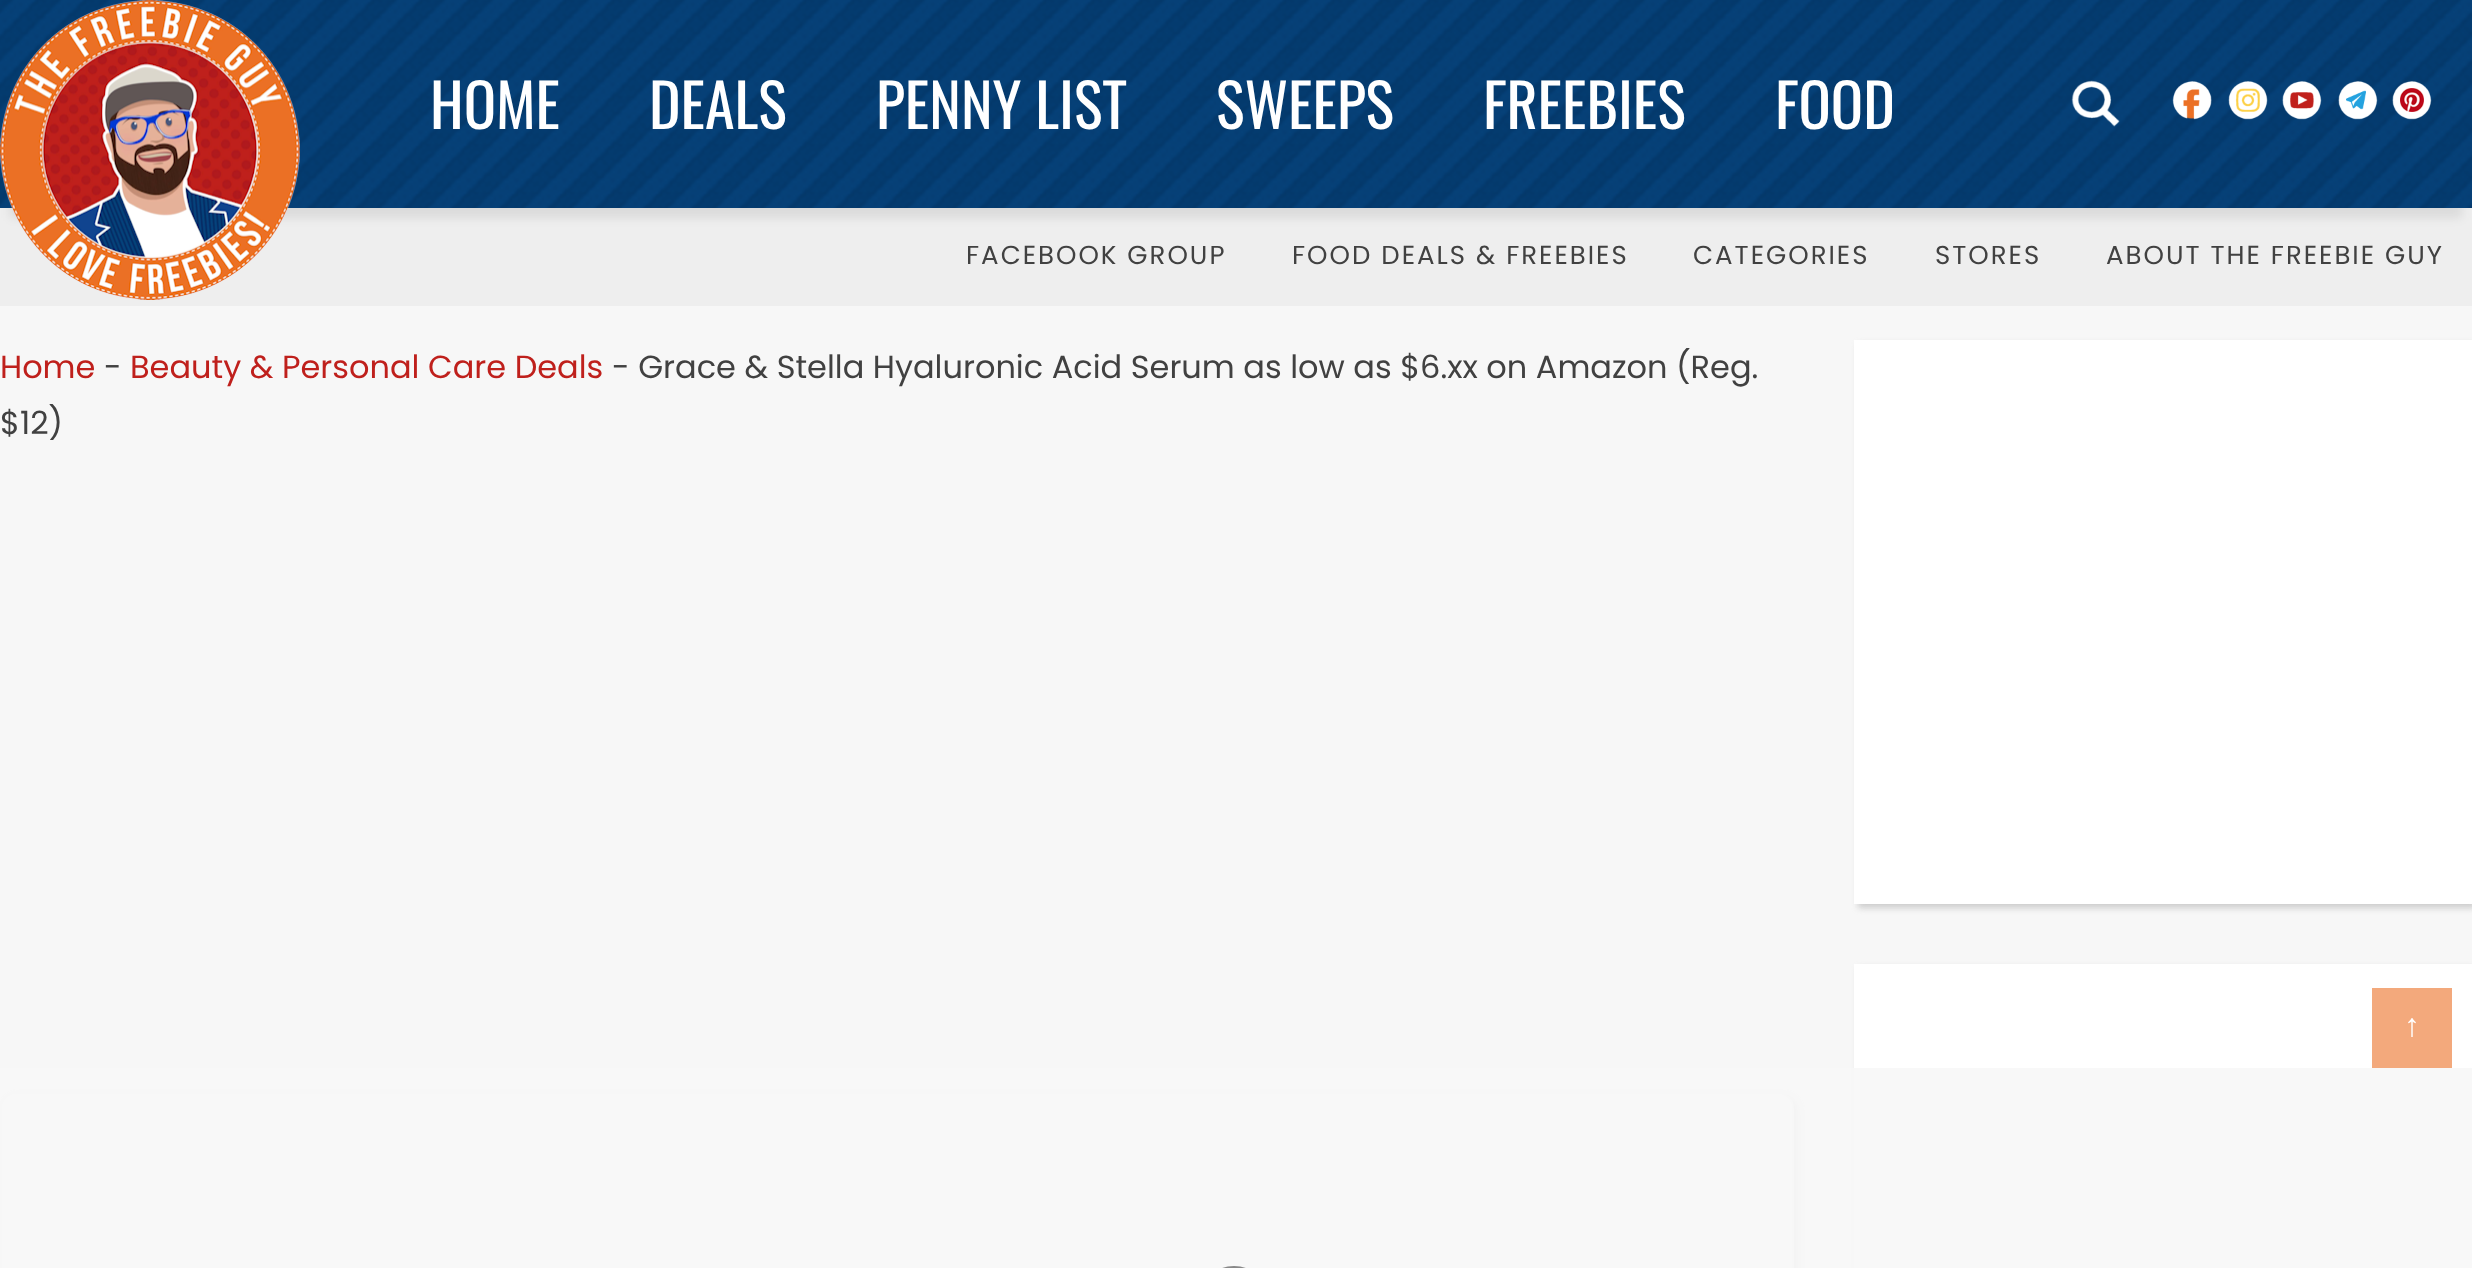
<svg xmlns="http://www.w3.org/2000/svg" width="2472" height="1268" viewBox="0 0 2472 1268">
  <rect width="100%" height="100%" fill="rgb(247,247,247)"/>
  <rect x="0" y="208" width="2472" height="98" fill="rgb(238,238,238)"/>
  <rect x="10" y="30" width="2452" height="188" fill="rgba(0,0,0,0.08)" filter="blur(5px)"/>
  <image x="0" y="0" width="2472" height="208" href="pic1.png"/>
  <g font-family="Oswald" font-size="60" fill="rgb(255,255,255)">
    <text x="430" y="129">HOME</text>
    <text x="649" y="129">DEALS</text>
    <text x="876" y="129">PENNY LIST</text>
    <text x="1216" y="129">SWEEPS</text>
    <text x="1483" y="129">FREEBIES</text>
    <text x="1775" y="129">FOOD</text>
  </g>
  <image x="2071" y="80" width="49" height="47" href="pic2.png"/>
  <image x="2172" y="81" width="40" height="39" href="pic3.png"/>
  <image x="2228" y="81" width="40" height="39" href="pic4.png"/>
  <image x="2282" y="81" width="40" height="39" href="pic5.png"/>
  <image x="2338" y="81" width="40" height="39" href="pic6.png"/>
  <image x="2392" y="81" width="40" height="39" href="pic7.png"/>
  <image x="0" y="0" width="300" height="300" href="pic8.png"/>
  <g font-family="Poppins" font-size="26" letter-spacing="2" fill="rgb(65,65,65)">
    <text x="966" y="264">FACEBOOK GROUP</text>
    <text x="1292" y="264">FOOD DEALS &amp; FREEBIES</text>
    <text x="1693" y="264">CATEGORIES</text>
    <text x="1935" y="264">STORES</text>
    <text x="2106" y="264">ABOUT THE FREEBIE GUY</text>
  </g>
  <text x="0" y="378" font-family="Poppins" font-size="32" fill="rgb(191,32,28)">Home</text>
  <text x="104" y="378" font-family="Poppins" font-size="32" fill="rgb(65,65,65)">-</text>
  <text x="130" y="378" font-family="Poppins" font-size="32" fill="rgb(191,32,28)">Beauty &amp; Personal Care Deals</text>
  <g font-family="Poppins" font-size="32" fill="rgb(65,65,65)">
    <text x="612" y="378">- Grace &amp; Stella Hyaluronic Acid Serum as low as $6.xx on Amazon (Reg.</text>
    <text x="0" y="434">$12)</text>
  </g>
  <rect x="4" y="1096" width="1794" height="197" rx="16" fill="rgba(153,153,153,0.45)" filter="blur(3px)"/>
  <rect x="1" y="1093" width="1792" height="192" rx="15" fill="rgb(255,255,255)" stroke="rgb(238,238,238)" stroke-width="2"/>
  <rect x="1858" y="344" width="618" height="564" fill="rgba(153,153,153,0.45)" filter="blur(3px)"/>
  <rect x="1854" y="340" width="618" height="564" fill="rgb(255,255,255)"/>
  <rect x="1858" y="968" width="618" height="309" fill="rgba(153,153,153,0.45)" filter="blur(3px)"/>
  <rect x="1854" y="964" width="618" height="304" fill="rgb(255,255,255)"/>
  <rect x="2372" y="988" width="80" height="80" fill="rgb(243,169,124)"/>
  <text x="2404" y="1036" font-family="Liberation Sans" font-size="32" fill="rgb(255,255,255)">↑</text>
  <rect x="0" y="1068" width="2472" height="200" fill="rgba(247,247,247,0.9)"/>
  <rect x="1213" y="1267" width="42" height="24" rx="21" fill="none" stroke="rgb(136,136,136)" stroke-width="2"/>
</svg>
